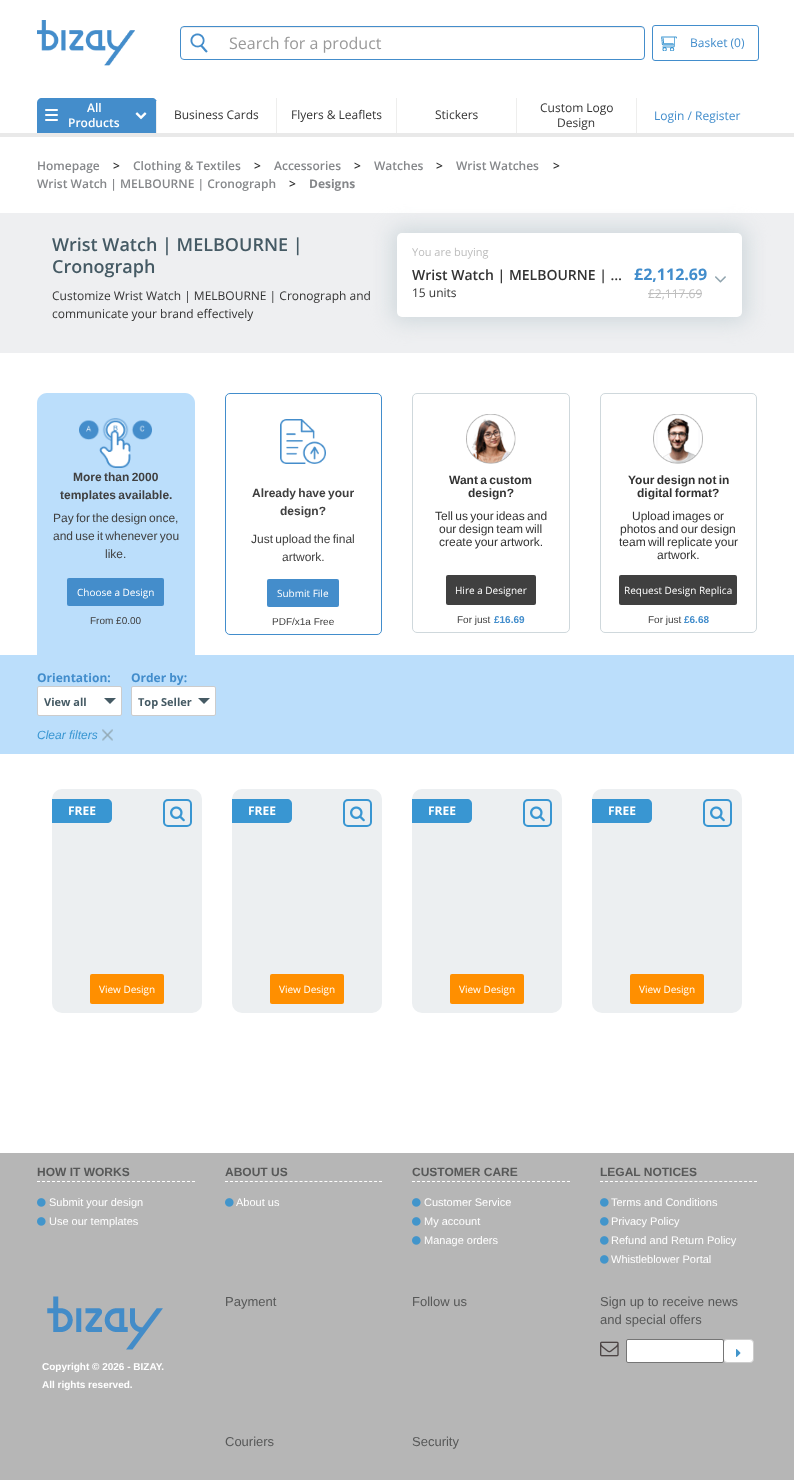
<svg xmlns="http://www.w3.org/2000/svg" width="794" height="1480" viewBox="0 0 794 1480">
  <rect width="100%" height="100%" fill="rgb(255,255,255)"/>
  <image x="37" y="20" width="98" height="46" href="pic1.png"/>
  <path d="M184 28H641C643 28 644 29 644 31C644 29 643 27 641 27H183L181 29V31C181 29 182 28 184 28Z" fill="rgb(236,236,236)"/>
  <rect x="180.5" y="26.5" width="464" height="33" rx="3.5" fill="none" stroke="rgb(68,141,203)"/>
  <image x="190" y="33" width="18" height="20" href="pic2.png"/>
  <text x="229" y="49" font-family="Open Sans" font-size="16" fill="rgb(153,153,153)">Search for a product</text>
  <rect x="652.5" y="25.5" width="106" height="35" rx="2.5" fill="none" stroke="rgb(66,141,204)"/>
  <image x="661" y="36" width="16" height="15" href="pic3.png"/>
  <text x="690" y="47" font-family="Open Sans" font-size="12" fill="rgb(66,141,204)">Basket (0)</text>
  <path d="M42 98H152C155 98 157 100 157 103V133H37V103C37 100 39 98 42 98Z" fill="rgb(68,141,203)"/>
  <rect x="156" y="101" width="1" height="32" fill="rgb(238,238,237)"/>
  <image x="45" y="109" width="13" height="12" href="pic4.png"/>
  <g font-family="Open Sans" font-size="12" font-weight="600" fill="rgb(255,255,255)">
    <text x="87" y="112">All</text>
    <text x="68" y="127">Products</text>
  </g>
  <image x="135" y="112" width="12" height="8" href="pic5.png"/>
  <rect x="276" y="98" width="1" height="35" fill="rgb(238,238,237)"/>
  <text x="174" y="119" font-family="Open Sans" font-size="12" fill="rgb(51,51,51)">Business Cards</text>
  <rect x="396" y="98" width="1" height="35" fill="rgb(238,238,237)"/>
  <text x="291" y="119" font-family="Open Sans" font-size="12" fill="rgb(51,51,51)">Flyers &amp; Leaflets</text>
  <rect x="516" y="98" width="1" height="35" fill="rgb(238,238,237)"/>
  <text x="435" y="119" font-family="Open Sans" font-size="12" fill="rgb(51,51,51)">Stickers</text>
  <rect x="636" y="98" width="1" height="35" fill="rgb(238,238,237)"/>
  <g font-family="Open Sans" font-size="12" fill="rgb(51,51,51)">
    <text x="540" y="112">Custom Logo</text>
    <text x="557" y="127">Design</text>
  </g>
  <text x="654" y="120" font-family="Open Sans" font-size="12" fill="rgb(66,141,204)">Login / Register</text>
  <rect x="0" y="133" width="794" height="4" fill="rgb(233,233,233)"/>
  <text x="37" y="170" font-family="Open Sans" font-size="12" font-weight="600" fill="rgb(133,135,138)">Homepage</text>
  <text x="113" y="170" font-family="Open Sans" font-size="12" font-weight="600" fill="rgb(51,51,51)">&gt;</text>
  <text x="133" y="170" font-family="Open Sans" font-size="12" font-weight="600" fill="rgb(133,135,138)">Clothing &amp; Textiles</text>
  <text x="254" y="170" font-family="Open Sans" font-size="12" font-weight="600" fill="rgb(51,51,51)">&gt;</text>
  <text x="274" y="170" font-family="Open Sans" font-size="12" font-weight="600" fill="rgb(133,135,138)">Accessories</text>
  <text x="354" y="170" font-family="Open Sans" font-size="12" font-weight="600" fill="rgb(51,51,51)">&gt;</text>
  <text x="374" y="170" font-family="Open Sans" font-size="12" font-weight="600" fill="rgb(133,135,138)">Watches</text>
  <text x="436" y="170" font-family="Open Sans" font-size="12" font-weight="600" fill="rgb(51,51,51)">&gt;</text>
  <text x="456" y="170" font-family="Open Sans" font-size="12" font-weight="600" fill="rgb(133,135,138)">Wrist Watches</text>
  <text x="553" y="170" font-family="Open Sans" font-size="12" font-weight="600" fill="rgb(51,51,51)">&gt;</text>
  <text x="37" y="188" font-family="Open Sans" font-size="12" font-weight="600" fill="rgb(133,135,138)">Wrist Watch | MELBOURNE | Cronograph</text>
  <text x="289" y="188" font-family="Open Sans" font-size="12" font-weight="600" fill="rgb(51,51,51)">&gt;</text>
  <text x="309" y="188" font-family="Open Sans" font-size="12" font-weight="bold" fill="rgb(133,135,138)">Designs</text>
  <rect x="0" y="213" width="794" height="140" fill="rgb(238,239,241)"/>
  <g font-family="Open Sans" font-size="18" font-weight="600" fill="rgb(69,90,100)">
    <text>
      <tspan x="52" y="251">Wrist Watch | MELBOURNE |</tspan>
      <tspan x="52" y="273">Cronograph</tspan>
    </text>
  </g>
  <g font-family="Open Sans" font-size="12" fill="rgb(51,51,51)">
    <text>
      <tspan x="52" y="300">Customize Wrist Watch | MELBOURNE | Cronograph and</tspan>
      <tspan x="52" y="318">communicate your brand effectively</tspan>
    </text>
  </g>
  <rect x="392" y="228" width="355" height="94" rx="10" fill="rgb(207,216,220)" filter="blur(10px)"/>
  <rect x="397" y="233" width="345" height="84" rx="5" fill="rgb(255,255,255)"/>
  <text x="412" y="256" font-family="Open Sans" font-size="11" fill="rgb(189,189,189)">You are buying</text>
  <text x="412" y="280" font-family="Open Sans" font-size="14" font-weight="600" fill="rgb(51,51,51)">Wrist Watch | MELBOURNE | …</text>
  <text x="412" y="297" font-family="Open Sans" font-size="12" fill="rgb(51,51,51)">15 units</text>
  <text x="634" y="280" font-family="Open Sans" font-size="16" font-weight="bold" fill="rgb(66,141,204)">£2,112.69</text>
  <text x="648" y="298" font-family="Open Sans" font-size="12" fill="rgb(189,189,189)">£2,117.69</text>
  <rect x="648" y="293" width="54" height="1" fill="rgb(189,189,189)"/>
  <image x="715" y="276" width="11" height="7" href="pic6.png"/>
  <path d="M47 393H185C190.5 393 195 397.5 195 403V655H37V403C37 397.5 41.5 393 47 393Z" fill="rgb(187,222,251)"/>
  <image x="79" y="418" width="73" height="50" href="pic7.png"/>
  <g font-family="Liberation Sans" font-size="12" font-weight="bold" fill="rgb(64,64,64)">
    <text x="73" y="481" word-spacing="-1">More than 2000</text>
    <text x="60" y="499" word-spacing="-1">templates available.</text>
  </g>
  <g font-family="Liberation Sans" font-size="12" fill="rgb(64,64,64)">
    <text>
      <tspan x="53" y="522" word-spacing="-1">Pay for the design once,</tspan>
      <tspan x="53" y="540" word-spacing="-1">and use it whenever you</tspan>
    </text>
    <text x="105" y="558">like.</text>
  </g>
  <rect x="67" y="578" width="97" height="28" rx="2" fill="rgb(68,141,203)"/>
  <text x="77" y="596" font-family="Open Sans" font-size="10" fill="rgb(255,255,255)">Choose a Design</text>
  <text x="90" y="624" font-family="Liberation Sans" font-size="10" fill="rgb(64,64,64)">From £0.00</text>
  <rect x="225.5" y="393.5" width="156" height="241" rx="4.5" fill="none" stroke="rgb(66,141,204)"/>
  <image x="280" y="419" width="46" height="45" href="pic8.png"/>
  <g font-family="Liberation Sans" font-size="12" font-weight="bold" fill="rgb(64,64,64)">
    <text x="252" y="497" word-spacing="-1">Already have your</text>
    <text x="280" y="515">design?</text>
  </g>
  <g font-family="Liberation Sans" font-size="12" fill="rgb(64,64,64)">
    <text x="251" y="543" word-spacing="-1">Just upload the final</text>
    <text x="282" y="561">artwork.</text>
  </g>
  <rect x="267" y="579" width="72" height="28" rx="2" fill="rgb(68,141,203)"/>
  <text x="277" y="597" font-family="Open Sans" font-size="10" fill="rgb(255,255,255)">Submit File</text>
  <text x="272" y="625" font-family="Liberation Sans" font-size="10" fill="rgb(64,64,64)">PDF/x1a Free</text>
  <rect x="412.5" y="393.5" width="157" height="239" rx="4.5" fill="none" stroke="rgb(207,216,220)"/>
  <image x="466" y="414" width="50" height="50" href="pic9.png"/>
  <g font-family="Liberation Sans" font-size="12" font-weight="bold" fill="rgb(51,51,51)">
    <text x="449" y="484" word-spacing="-1">Want a custom</text>
    <text x="468" y="497">design?</text>
  </g>
  <g font-family="Liberation Sans" font-size="12" fill="rgb(51,51,51)">
    <text x="435" y="520" word-spacing="-1">Tell us your ideas and</text>
    <text>
      <tspan x="439" y="533" word-spacing="-1">our design team will</tspan>
      <tspan x="439" y="546" word-spacing="-1">create your artwork.</tspan>
    </text>
  </g>
  <rect x="446" y="575" width="90" height="30" rx="2" fill="rgb(64,64,64)"/>
  <text x="455" y="594" font-family="Open Sans" font-size="10" fill="rgb(255,255,255)">Hire a Designer</text>
  <text x="457" y="623" font-family="Liberation Sans" font-size="10" fill="rgb(64,64,64)">For just</text>
  <text x="494" y="623" font-family="Liberation Sans" font-size="10" font-weight="bold" fill="rgb(66,141,204)">£16.69</text>
  <rect x="600.5" y="393.5" width="156" height="239" rx="4.5" fill="none" stroke="rgb(207,216,220)"/>
  <image x="653" y="414" width="50" height="50" href="pic10.png"/>
  <g font-family="Liberation Sans" font-size="12" font-weight="bold" fill="rgb(51,51,51)">
    <text x="628" y="484" word-spacing="-1">Your design not in</text>
    <text x="637" y="497" word-spacing="-1">digital format?</text>
  </g>
  <g font-family="Liberation Sans" font-size="12" fill="rgb(51,51,51)">
    <text x="632" y="520" word-spacing="-1">Upload images or</text>
    <text x="620" y="533" word-spacing="-1">photos and our design</text>
    <text x="619" y="546" word-spacing="-1">team will replicate your</text>
    <text x="657" y="559">artwork.</text>
  </g>
  <rect x="619" y="575" width="118" height="30" rx="2" fill="rgb(64,64,64)"/>
  <text x="624" y="594" font-family="Open Sans" font-size="10" fill="rgb(255,255,255)">Request Design Replica</text>
  <text x="648" y="623" font-family="Liberation Sans" font-size="10" fill="rgb(64,64,64)">For just</text>
  <text x="684" y="623" font-family="Liberation Sans" font-size="10" font-weight="bold" fill="rgb(66,141,204)">£6.68</text>
  <rect x="0" y="655" width="794" height="99" fill="rgb(187,222,251)"/>
  <text x="37" y="682" font-family="Open Sans" font-size="12" font-weight="bold" fill="rgb(66,141,204)">Orientation:</text>
  <rect x="37.5" y="686.5" width="84" height="29" rx="1.5" fill="rgb(255,255,255)" stroke="rgb(204,204,204)"/>
  <text x="44" y="706" font-family="Open Sans" font-size="11" font-weight="bold" fill="rgb(69,90,100)">View all</text>
  <path d="M104 698H116L110 704Z" fill="rgb(69,90,100)"/>
  <text x="131" y="682" font-family="Open Sans" font-size="12" font-weight="bold" fill="rgb(66,141,204)">Order by:</text>
  <rect x="131.5" y="686.5" width="84" height="29" rx="1.5" fill="rgb(255,255,255)" stroke="rgb(204,204,204)"/>
  <text x="138" y="706" font-family="Open Sans" font-size="11" font-weight="bold" fill="rgb(69,90,100)">Top Seller</text>
  <path d="M198 698H210L204 704Z" fill="rgb(69,90,100)"/>
  <text x="37" y="739" font-family="Liberation Sans" font-size="12" font-style="italic" fill="rgb(57,150,210)">Clear filters</text>
  <image x="102" y="729" width="11" height="12" href="pic11.png"/>
  <rect x="52" y="789" width="150" height="224" rx="10" fill="rgb(236,239,241)"/>
  <path d="M52 799H107C110 799 112 801 112 804V818C112 821 110 823 107 823H52Z" fill="rgb(57,150,210)"/>
  <text x="68" y="815" font-family="Open Sans" font-size="12" font-weight="bold" fill="rgb(255,255,255)">FREE</text>
  <rect x="90" y="974" width="74" height="30" rx="2" fill="rgb(255,143,0)"/>
  <text x="99" y="993" font-family="Open Sans" font-size="10" fill="rgb(255,255,255)">View Design</text>
  <rect x="164" y="800" width="27" height="26" rx="4" fill="none" stroke="rgb(57,150,210)" stroke-width="2"/>
  <image x="170" y="806" width="15" height="16" href="pic12.png"/>
  <rect x="232" y="789" width="150" height="224" rx="10" fill="rgb(236,239,241)"/>
  <path d="M232 799H287C290 799 292 801 292 804V818C292 821 290 823 287 823H232Z" fill="rgb(57,150,210)"/>
  <text x="248" y="815" font-family="Open Sans" font-size="12" font-weight="bold" fill="rgb(255,255,255)">FREE</text>
  <rect x="270" y="974" width="74" height="30" rx="2" fill="rgb(255,143,0)"/>
  <text x="279" y="993" font-family="Open Sans" font-size="10" fill="rgb(255,255,255)">View Design</text>
  <rect x="344" y="800" width="27" height="26" rx="4" fill="none" stroke="rgb(57,150,210)" stroke-width="2"/>
  <image x="350" y="806" width="15" height="16" href="pic12.png"/>
  <rect x="412" y="789" width="150" height="224" rx="10" fill="rgb(236,239,241)"/>
  <path d="M412 799H467C470 799 472 801 472 804V818C472 821 470 823 467 823H412Z" fill="rgb(57,150,210)"/>
  <text x="428" y="815" font-family="Open Sans" font-size="12" font-weight="bold" fill="rgb(255,255,255)">FREE</text>
  <rect x="450" y="974" width="74" height="30" rx="2" fill="rgb(255,143,0)"/>
  <text x="459" y="993" font-family="Open Sans" font-size="10" fill="rgb(255,255,255)">View Design</text>
  <rect x="524" y="800" width="27" height="26" rx="4" fill="none" stroke="rgb(57,150,210)" stroke-width="2"/>
  <image x="530" y="806" width="15" height="16" href="pic12.png"/>
  <rect x="592" y="789" width="150" height="224" rx="10" fill="rgb(236,239,241)"/>
  <path d="M592 799H647C650 799 652 801 652 804V818C652 821 650 823 647 823H592Z" fill="rgb(57,150,210)"/>
  <text x="608" y="815" font-family="Open Sans" font-size="12" font-weight="bold" fill="rgb(255,255,255)">FREE</text>
  <rect x="630" y="974" width="74" height="30" rx="2" fill="rgb(255,143,0)"/>
  <text x="639" y="993" font-family="Open Sans" font-size="10" fill="rgb(255,255,255)">View Design</text>
  <rect x="704" y="800" width="27" height="26" rx="4" fill="none" stroke="rgb(57,150,210)" stroke-width="2"/>
  <image x="710" y="806" width="15" height="16" href="pic12.png"/>
  <rect x="0" y="1153" width="794" height="327" fill="rgb(182,182,182)"/>
  <path d="M37 1181.5H195" fill="none" stroke="rgb(255,255,255)" stroke-dasharray="3 2"/>
  <text x="37" y="1176" font-family="Liberation Sans" font-size="12" font-weight="bold" fill="rgb(87,88,88)">HOW IT WORKS</text>
  <image x="37" y="1198" width="9" height="9" href="pic13.png"/>
  <text x="49" y="1206" font-family="Liberation Sans" font-size="11" fill="rgb(255,255,255)">Submit your design</text>
  <image x="37" y="1217" width="9" height="9" href="pic13.png"/>
  <text x="49" y="1225" font-family="Liberation Sans" font-size="11" fill="rgb(255,255,255)">Use our templates</text>
  <path d="M225 1181.5H382" fill="none" stroke="rgb(255,255,255)" stroke-dasharray="3 1.97"/>
  <text x="225" y="1176" font-family="Liberation Sans" font-size="12" font-weight="bold" fill="rgb(87,88,88)">ABOUT US</text>
  <image x="225" y="1198" width="9" height="9" href="pic13.png"/>
  <text x="236" y="1206" font-family="Liberation Sans" font-size="11" fill="rgb(255,255,255)">About us</text>
  <path d="M412 1181.5H570" fill="none" stroke="rgb(255,255,255)" stroke-dasharray="3 2"/>
  <text x="412" y="1176" font-family="Liberation Sans" font-size="12" font-weight="bold" fill="rgb(87,88,88)">CUSTOMER CARE</text>
  <image x="412" y="1198" width="9" height="9" href="pic13.png"/>
  <text x="424" y="1206" font-family="Liberation Sans" font-size="11" fill="rgb(255,255,255)">Customer Service</text>
  <image x="412" y="1217" width="9" height="9" href="pic13.png"/>
  <text x="424" y="1225" font-family="Liberation Sans" font-size="11" fill="rgb(255,255,255)">My account</text>
  <image x="412" y="1236" width="9" height="9" href="pic13.png"/>
  <text x="424" y="1244" font-family="Liberation Sans" font-size="11" fill="rgb(255,255,255)">Manage orders</text>
  <path d="M600 1181.5H757" fill="none" stroke="rgb(255,255,255)" stroke-dasharray="3 1.97"/>
  <text x="600" y="1176" font-family="Liberation Sans" font-size="12" font-weight="bold" fill="rgb(87,88,88)">LEGAL NOTICES</text>
  <image x="600" y="1198" width="9" height="9" href="pic13.png"/>
  <text x="611" y="1206" font-family="Liberation Sans" font-size="11" fill="rgb(255,255,255)">Terms and Conditions</text>
  <image x="600" y="1217" width="9" height="9" href="pic13.png"/>
  <text x="611" y="1225" font-family="Liberation Sans" font-size="11" fill="rgb(255,255,255)">Privacy Policy</text>
  <image x="600" y="1236" width="9" height="9" href="pic13.png"/>
  <text x="611" y="1244" font-family="Liberation Sans" font-size="11" fill="rgb(255,255,255)">Refund and Return Policy</text>
  <image x="600" y="1255" width="9" height="9" href="pic13.png"/>
  <text x="611" y="1263" font-family="Liberation Sans" font-size="11" fill="rgb(255,255,255)">Whistleblower Portal</text>
  <image x="47" y="1296" width="116" height="54" href="pic14.png"/>
  <g font-family="Liberation Sans" font-size="10" font-weight="bold" fill="rgb(255,255,255)">
    <text>
      <tspan x="42" y="1370">Copyright © 2026 - BIZAY.</tspan>
      <tspan x="42" y="1388">All rights reserved.</tspan>
    </text>
  </g>
  <g font-family="Liberation Sans" font-size="13" fill="rgb(87,88,88)">
    <text x="225" y="1306">Payment</text>
    <text x="225" y="1446">Couriers</text>
    <text x="412" y="1306">Follow us</text>
    <text x="412" y="1446">Security</text>
    <text>
      <tspan x="600" y="1306">Sign up to receive news</tspan>
      <tspan x="600" y="1324">and special offers</tspan>
    </text>
  </g>
  <image x="600" y="1341" width="19" height="16" href="pic15.png"/>
  <rect x="723.5" y="1339.5" width="30" height="23" rx="3.5" fill="rgb(255,255,255)" stroke="rgb(204,204,204)"/>
  <rect x="626.5" y="1339.5" width="97" height="23" rx="1.5" fill="rgb(255,255,255)" stroke="rgb(118,118,118)"/>
  <image x="736" y="1349" width="5" height="8" href="pic16.png"/>
</svg>
